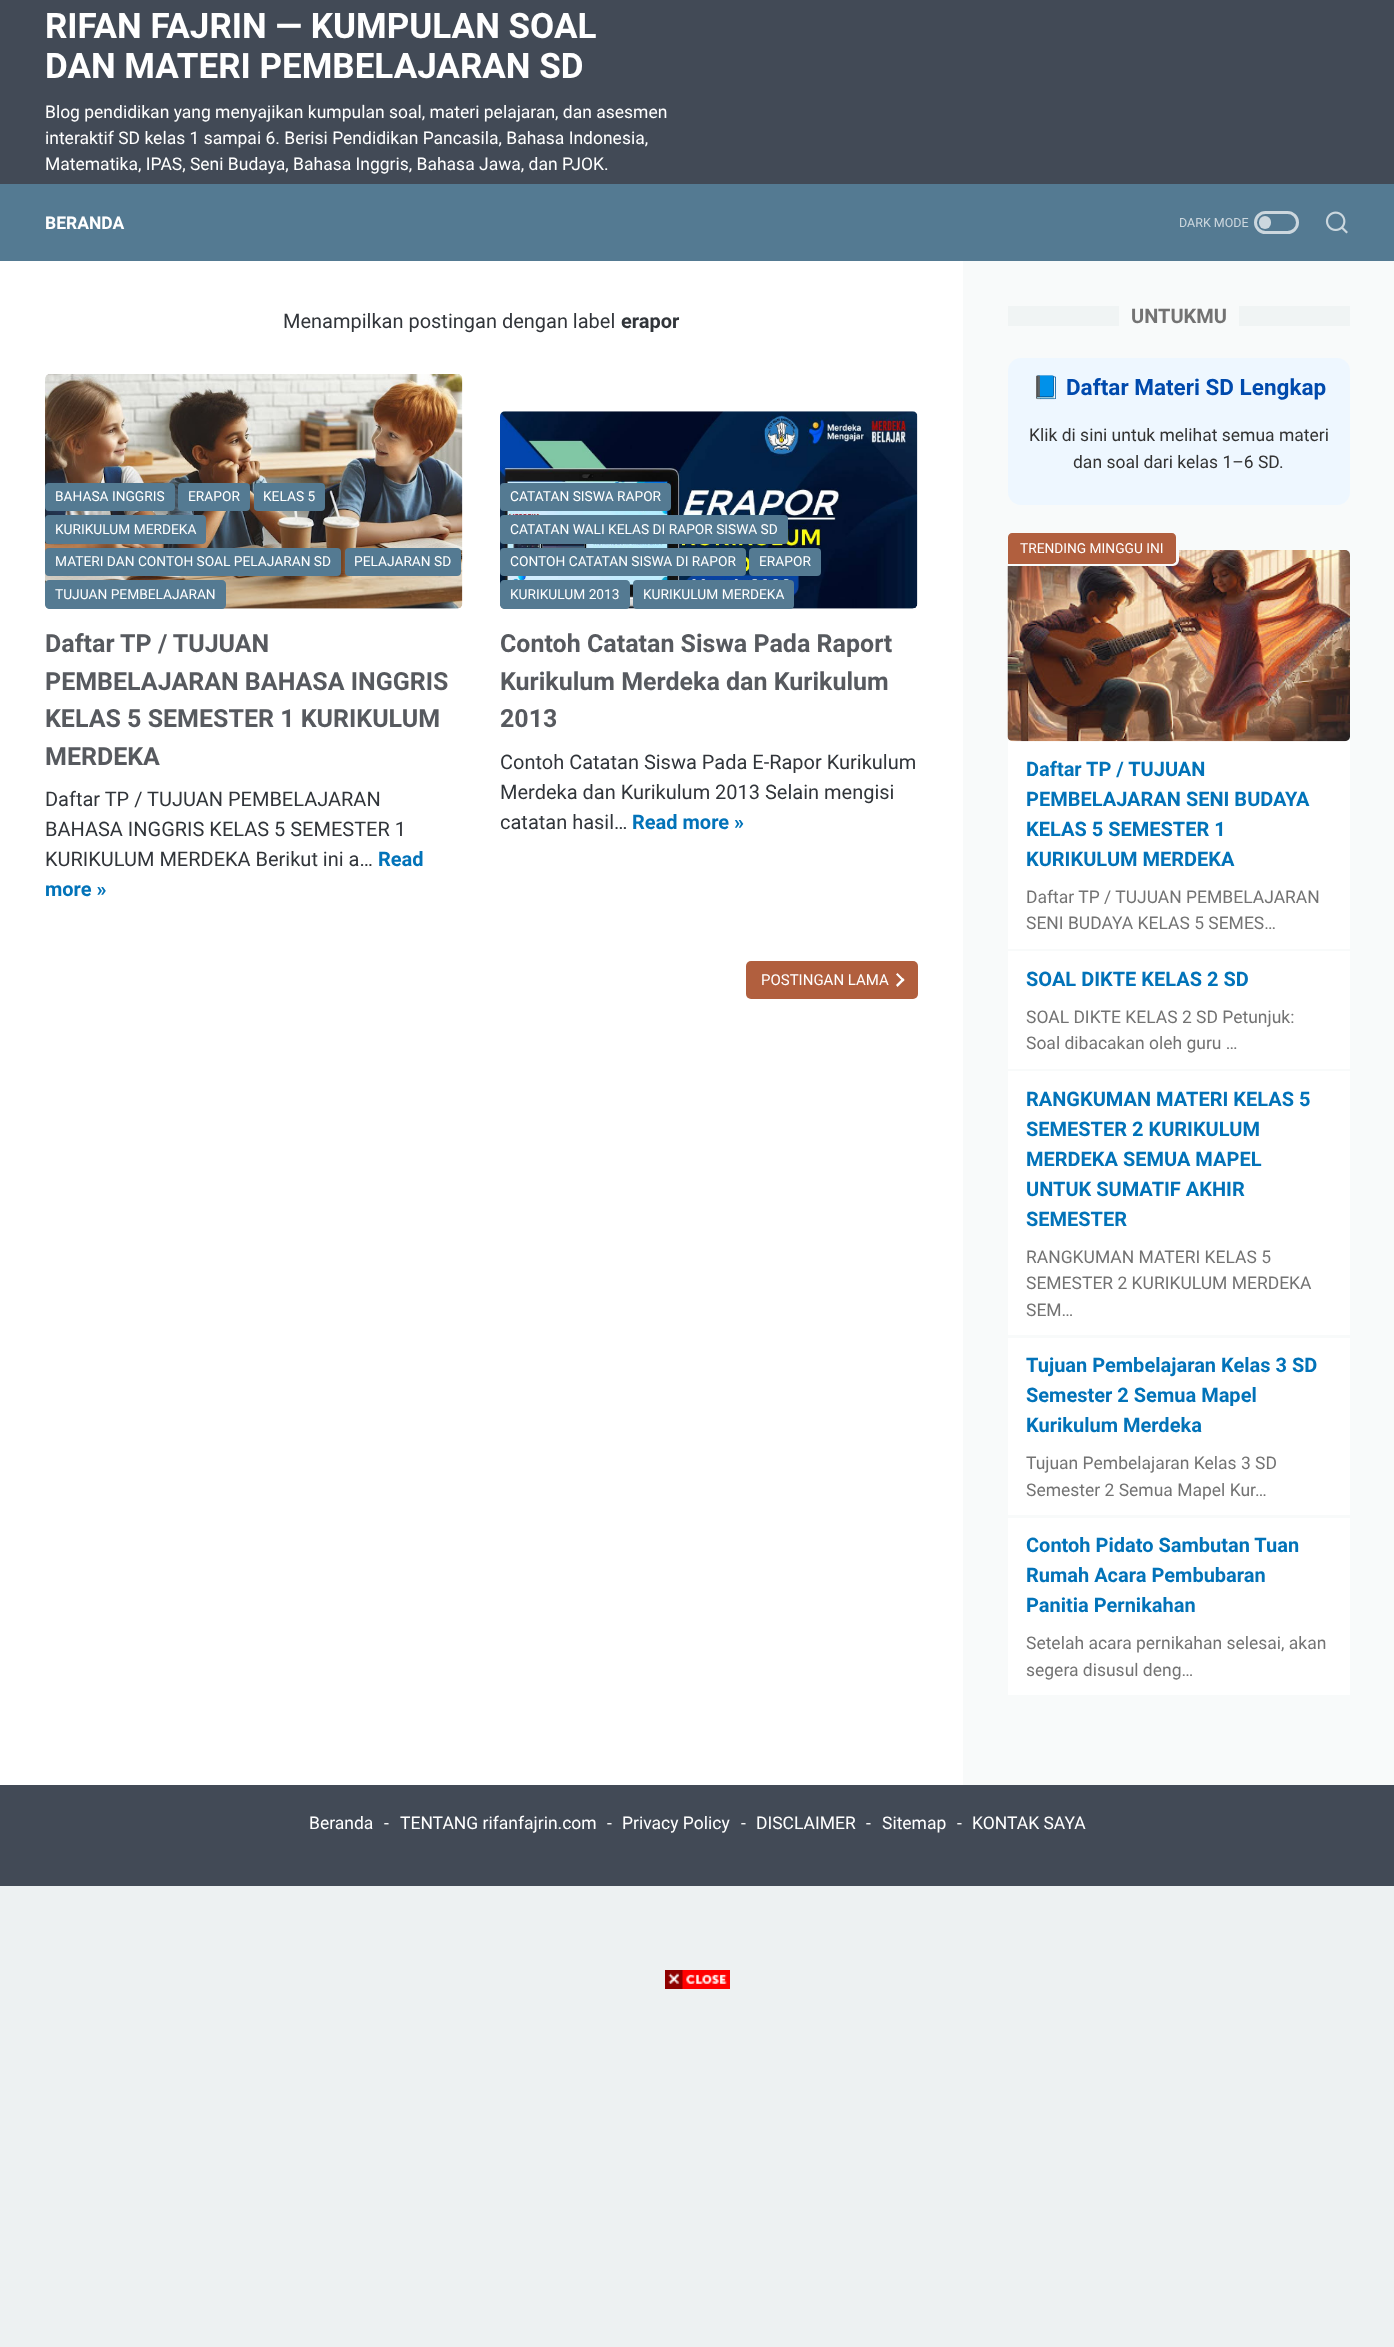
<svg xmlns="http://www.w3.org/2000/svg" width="1394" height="2347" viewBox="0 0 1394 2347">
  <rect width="100%" height="100%" fill="rgb(237,241,242)"/>
  <rect x="0" y="0" width="1394" height="184" fill="rgb(66,74,86)"/>
  <g font-family="Roboto" font-size="35" font-weight="bold" fill="rgb(255,255,255)">
    <text>
      <tspan x="45" y="38">RIFAN FAJRIN — KUMPULAN SOAL</tspan>
      <tspan x="45" y="78">DAN MATERI PEMBELAJARAN SD</tspan>
    </text>
  </g>
  <g font-family="Roboto" font-size="17.5" fill="rgb(255,255,255)">
    <text>
      <tspan x="45" y="118">Blog pendidikan yang menyajikan kumpulan soal, materi pelajaran, dan asesmen</tspan>
      <tspan x="45" y="144">interaktif SD kelas 1 sampai 6. Berisi Pendidikan Pancasila, Bahasa Indonesia,</tspan>
      <tspan x="45" y="170">Matematika, IPAS, Seni Budaya, Bahasa Inggris, Bahasa Jawa, dan PJOK.</tspan>
    </text>
  </g>
  <rect x="0" y="184" width="1394" height="77" fill="rgb(84,122,146)"/>
  <text x="45" y="229" font-family="Roboto" font-size="17.5" font-weight="bold" fill="rgb(255,255,255)">BERANDA</text>
  <text x="1179" y="227" font-family="Roboto" font-size="12.5" fill="rgb(204,215,222)">DARK MODE</text>
  <rect x="1255.5" y="212.5" width="42" height="20" rx="10" fill="none" stroke="rgb(204,215,222)" stroke-width="3"/>
  <rect x="1259" y="216" width="12" height="13" rx="6" fill="rgb(204,215,222)"/>
  <image x="1325" y="211" width="23" height="23" href="pic1.png"/>
  <rect x="0" y="261" width="963" height="1524" fill="rgb(255,255,255)"/>
  <text x="283" y="328" font-family="Roboto" font-size="20" fill="rgb(49,53,58)">Menampilkan postingan dengan label</text>
  <text x="621" y="328" font-family="Roboto" font-size="20" font-weight="bold" fill="rgb(49,53,58)">erapor</text>
  <image x="45" y="374" width="418" height="235" href="pic2.png"/>
  <rect x="45" y="483" width="130" height="28" rx="4" fill="rgb(84,122,146)"/>
  <text x="55" y="501" font-family="Roboto" font-size="13.75" fill="rgb(255,255,255)">BAHASA INGGRIS</text>
  <rect x="178" y="483" width="72" height="28" rx="4" fill="rgb(84,122,146)"/>
  <text x="188" y="501" font-family="Roboto" font-size="13.75" fill="rgb(255,255,255)">ERAPOR</text>
  <rect x="254" y="483" width="71" height="28" rx="4" fill="rgb(84,122,146)"/>
  <text x="263" y="501" font-family="Roboto" font-size="13.75" fill="rgb(255,255,255)">KELAS 5</text>
  <rect x="45" y="515" width="161" height="29" rx="4" fill="rgb(84,122,146)"/>
  <text x="55" y="534" font-family="Roboto" font-size="13.75" fill="rgb(255,255,255)">KURIKULUM MERDEKA</text>
  <rect x="45" y="548" width="296" height="28" rx="4" fill="rgb(84,122,146)"/>
  <text x="55" y="566" font-family="Roboto" font-size="13.75" fill="rgb(255,255,255)">MATERI DAN CONTOH SOAL PELAJARAN SD</text>
  <rect x="345" y="548" width="116" height="28" rx="4" fill="rgb(84,122,146)"/>
  <text x="354" y="566" font-family="Roboto" font-size="13.75" fill="rgb(255,255,255)">PELAJARAN SD</text>
  <path d="M49 580H222C224 580 226 582 226 584V605C226 607 224 609 222 609H50C47 609 45 607 45 604V584C45 582 47 580 49 580Z" fill="rgb(84,122,146)"/>
  <text x="55" y="599" font-family="Roboto" font-size="13.75" fill="rgb(255,255,255)">TUJUAN PEMBELAJARAN</text>
  <g font-family="Roboto" font-size="25" font-weight="bold" fill="rgb(87,90,95)">
    <text>
      <tspan x="45" y="652">Daftar TP / TUJUAN</tspan>
      <tspan x="45" y="690">PEMBELAJARAN BAHASA INGGRIS</tspan>
      <tspan x="45" y="727">KELAS 5 SEMESTER 1 KURIKULUM</tspan>
      <tspan x="45" y="765">MERDEKA</tspan>
    </text>
  </g>
  <g font-family="Roboto" font-size="20" fill="rgb(49,53,58)">
    <text>
      <tspan x="45" y="806">Daftar TP / TUJUAN PEMBELAJARAN</tspan>
      <tspan x="45" y="836">BAHASA INGGRIS KELAS 5 SEMESTER 1</tspan>
      <tspan x="45" y="866">KURIKULUM MERDEKA Berikut ini a…</tspan>
    </text>
  </g>
  <g font-family="Roboto" font-size="20" font-weight="bold" fill="rgb(2,115,185)">
    <text x="378" y="866">Read</text>
    <text x="45" y="896">more »</text>
  </g>
  <image x="500" y="411" width="418" height="198" href="pic3.png"/>
  <rect x="500" y="483" width="171" height="28" rx="4" fill="rgb(84,122,146)"/>
  <text x="510" y="501" font-family="Roboto" font-size="13.75" fill="rgb(255,255,255)">CATATAN SISWA RAPOR</text>
  <rect x="500" y="515" width="288" height="29" rx="4" fill="rgb(84,122,146)"/>
  <text x="510" y="534" font-family="Roboto" font-size="13.75" fill="rgb(255,255,255)">CATATAN WALI KELAS DI RAPOR SISWA SD</text>
  <rect x="500" y="548" width="246" height="28" rx="4" fill="rgb(84,122,146)"/>
  <text x="510" y="566" font-family="Roboto" font-size="13.75" fill="rgb(255,255,255)">CONTOH CATATAN SISWA DI RAPOR</text>
  <rect x="749" y="548" width="72" height="28" rx="4" fill="rgb(84,122,146)"/>
  <text x="759" y="566" font-family="Roboto" font-size="13.75" fill="rgb(255,255,255)">ERAPOR</text>
  <path d="M504 580H626C628 580 630 582 630 584V605C630 607 628 609 626 609H505C502 609 500 607 500 604V584C500 582 502 580 504 580Z" fill="rgb(84,122,146)"/>
  <text x="510" y="599" font-family="Roboto" font-size="13.75" fill="rgb(255,255,255)">KURIKULUM 2013</text>
  <rect x="633" y="580" width="161" height="29" rx="4" fill="rgb(84,122,146)"/>
  <text x="643" y="599" font-family="Roboto" font-size="13.75" fill="rgb(255,255,255)">KURIKULUM MERDEKA</text>
  <g font-family="Roboto" font-size="25" font-weight="bold" fill="rgb(87,90,95)">
    <text>
      <tspan x="500" y="652">Contoh Catatan Siswa Pada Raport</tspan>
      <tspan x="500" y="690">Kurikulum Merdeka dan Kurikulum</tspan>
      <tspan x="500" y="727">2013</tspan>
    </text>
  </g>
  <g font-family="Roboto" font-size="20" fill="rgb(49,53,58)">
    <text>
      <tspan x="500" y="769">Contoh Catatan Siswa Pada E-Rapor Kurikulum</tspan>
      <tspan x="500" y="799">Merdeka dan Kurikulum 2013 Selain mengisi</tspan>
      <tspan x="500" y="829">catatan hasil…</tspan>
    </text>
  </g>
  <text x="632" y="829" font-family="Roboto" font-size="20" font-weight="bold" fill="rgb(2,115,185)">Read more »</text>
  <rect x="746" y="961" width="172" height="38" rx="5" fill="rgb(177,95,62)"/>
  <text x="761" y="985" font-family="Roboto" font-size="15" fill="rgb(255,255,255)">POSTINGAN LAMA</text>
  <path d="M896 974.5L897.5 973L904.5 980L903 981.5Z" fill="rgb(255,255,255)"/>
  <path d="M896 985L903 978L904.5 980L897.5 987Z" fill="rgb(255,255,255)"/>
  <rect x="963" y="261" width="431" height="1524" fill="rgb(248,250,250)"/>
  <rect x="1008" y="306" width="342" height="20" fill="rgb(240,244,244)"/>
  <rect x="1119" y="306" width="120" height="20" fill="rgb(248,250,250)"/>
  <text x="1131" y="323" font-family="Roboto" font-size="20" font-weight="bold" fill="rgb(115,115,115)">UNTUKMU</text>
  <rect x="1008" y="358" width="342" height="147" rx="13" fill="rgb(238,247,255)"/>
  <text x="1032" y="395" font-family="Noto Color Emoji" font-size="22.5" font-weight="bold" fill="rgb(49,53,58)">📘</text>
  <text x="1066" y="395" font-family="Roboto" font-size="22.5" font-weight="bold" fill="rgb(0,74,173)">Daftar Materi SD Lengkap</text>
  <g font-family="Roboto" font-size="17.5" fill="rgb(51,51,51)">
    <text x="1029" y="441">Klik di sini untuk melihat semua materi</text>
    <text x="1073" y="468">dan soal dari kelas 1–6 SD.</text>
  </g>
  <rect x="1008" y="741" width="342" height="208" fill="rgb(255,255,255)"/>
  <image x="1007" y="550" width="343" height="192" href="pic4.png"/>
  <path d="M1011 531.5H1173C1175.5 531.5 1177.5 533.5 1177.5 536V560C1177.5 562.5 1175.5 564.5 1173 564.5H1006.5V536C1006.5 533.5 1008.5 531.5 1011 531.5Z" fill="none" stroke="rgb(248,250,250)" stroke-width="3"/>
  <path d="M1012 533H1172C1174 533 1176 535 1176 537V560C1176 562 1174 564 1172 564H1008V537C1008 535 1010 533 1012 533Z" fill="rgb(177,95,62)"/>
  <text x="1020" y="553" font-family="Roboto" font-size="13.75" fill="rgb(255,255,255)">TRENDING MINGGU INI</text>
  <g font-family="Roboto" font-size="20" font-weight="bold" fill="rgb(2,115,185)">
    <text>
      <tspan x="1026" y="776">Daftar TP / TUJUAN</tspan>
      <tspan x="1026" y="806">PEMBELAJARAN SENI BUDAYA</tspan>
      <tspan x="1026" y="836">KELAS 5 SEMESTER 1</tspan>
      <tspan x="1026" y="866">KURIKULUM MERDEKA</tspan>
    </text>
  </g>
  <g font-family="Roboto" font-size="17.5" fill="rgb(115,115,115)">
    <text>
      <tspan x="1026" y="903">Daftar TP / TUJUAN PEMBELAJARAN</tspan>
      <tspan x="1026" y="929">SENI BUDAYA KELAS 5 SEMES…</tspan>
    </text>
  </g>
  <rect x="1008" y="951" width="342" height="118" fill="rgb(255,255,255)"/>
  <text x="1026" y="986" font-family="Roboto" font-size="20" font-weight="bold" fill="rgb(2,115,185)">SOAL DIKTE KELAS 2 SD</text>
  <g font-family="Roboto" font-size="17.5" fill="rgb(115,115,115)">
    <text>
      <tspan x="1026" y="1023">SOAL DIKTE KELAS 2 SD Petunjuk:</tspan>
      <tspan x="1026" y="1049">Soal dibacakan oleh guru …</tspan>
    </text>
  </g>
  <rect x="1008" y="1071" width="342" height="264" fill="rgb(255,255,255)"/>
  <g font-family="Roboto" font-size="20" font-weight="bold" fill="rgb(2,115,185)">
    <text>
      <tspan x="1026" y="1106">RANGKUMAN MATERI KELAS 5</tspan>
      <tspan x="1026" y="1136">SEMESTER 2 KURIKULUM</tspan>
      <tspan x="1026" y="1166">MERDEKA SEMUA MAPEL</tspan>
      <tspan x="1026" y="1196">UNTUK SUMATIF AKHIR</tspan>
      <tspan x="1026" y="1226">SEMESTER</tspan>
    </text>
  </g>
  <g font-family="Roboto" font-size="17.5" fill="rgb(115,115,115)">
    <text>
      <tspan x="1026" y="1263">RANGKUMAN MATERI KELAS 5</tspan>
      <tspan x="1026" y="1289">SEMESTER 2 KURIKULUM MERDEKA</tspan>
      <tspan x="1026" y="1316">SEM…</tspan>
    </text>
  </g>
  <rect x="1008" y="1338" width="342" height="177" fill="rgb(255,255,255)"/>
  <g font-family="Roboto" font-size="20" font-weight="bold" fill="rgb(2,115,185)">
    <text>
      <tspan x="1026" y="1372">Tujuan Pembelajaran Kelas 3 SD</tspan>
      <tspan x="1026" y="1402">Semester 2 Semua Mapel</tspan>
      <tspan x="1026" y="1432">Kurikulum Merdeka</tspan>
    </text>
  </g>
  <g font-family="Roboto" font-size="17.5" fill="rgb(115,115,115)">
    <text>
      <tspan x="1026" y="1469">Tujuan Pembelajaran Kelas 3 SD</tspan>
      <tspan x="1026" y="1496">Semester 2 Semua Mapel Kur…</tspan>
    </text>
  </g>
  <rect x="1008" y="1518" width="342" height="177" fill="rgb(255,255,255)"/>
  <g font-family="Roboto" font-size="20" font-weight="bold" fill="rgb(2,115,185)">
    <text>
      <tspan x="1026" y="1552">Contoh Pidato Sambutan Tuan</tspan>
      <tspan x="1026" y="1582">Rumah Acara Pembubaran</tspan>
      <tspan x="1026" y="1612">Panitia Pernikahan</tspan>
    </text>
  </g>
  <g font-family="Roboto" font-size="17.5" fill="rgb(115,115,115)">
    <text>
      <tspan x="1026" y="1649">Setelah acara pernikahan selesai, akan</tspan>
      <tspan x="1026" y="1676">segera disusul deng…</tspan>
    </text>
  </g>
  <rect x="0" y="1785" width="1394" height="101" fill="rgb(66,74,86)"/>
  <g font-family="Roboto" font-size="17.5" fill="rgb(255,255,255)">
    <text x="309" y="1829">Beranda</text>
    <text x="384" y="1829">-</text>
    <text x="400" y="1829">TENTANG rifanfajrin.com</text>
    <text x="607" y="1829">-</text>
    <text x="622" y="1829">Privacy Policy</text>
    <text x="741" y="1829">-</text>
    <text x="756" y="1829">DISCLAIMER</text>
    <text x="866" y="1829">-</text>
    <text x="882" y="1829">Sitemap</text>
    <text x="957" y="1829">-</text>
    <text x="972" y="1829">KONTAK SAYA</text>
  </g>
  <image x="665" y="1970" width="65" height="19" href="pic5.png"/>
</svg>
